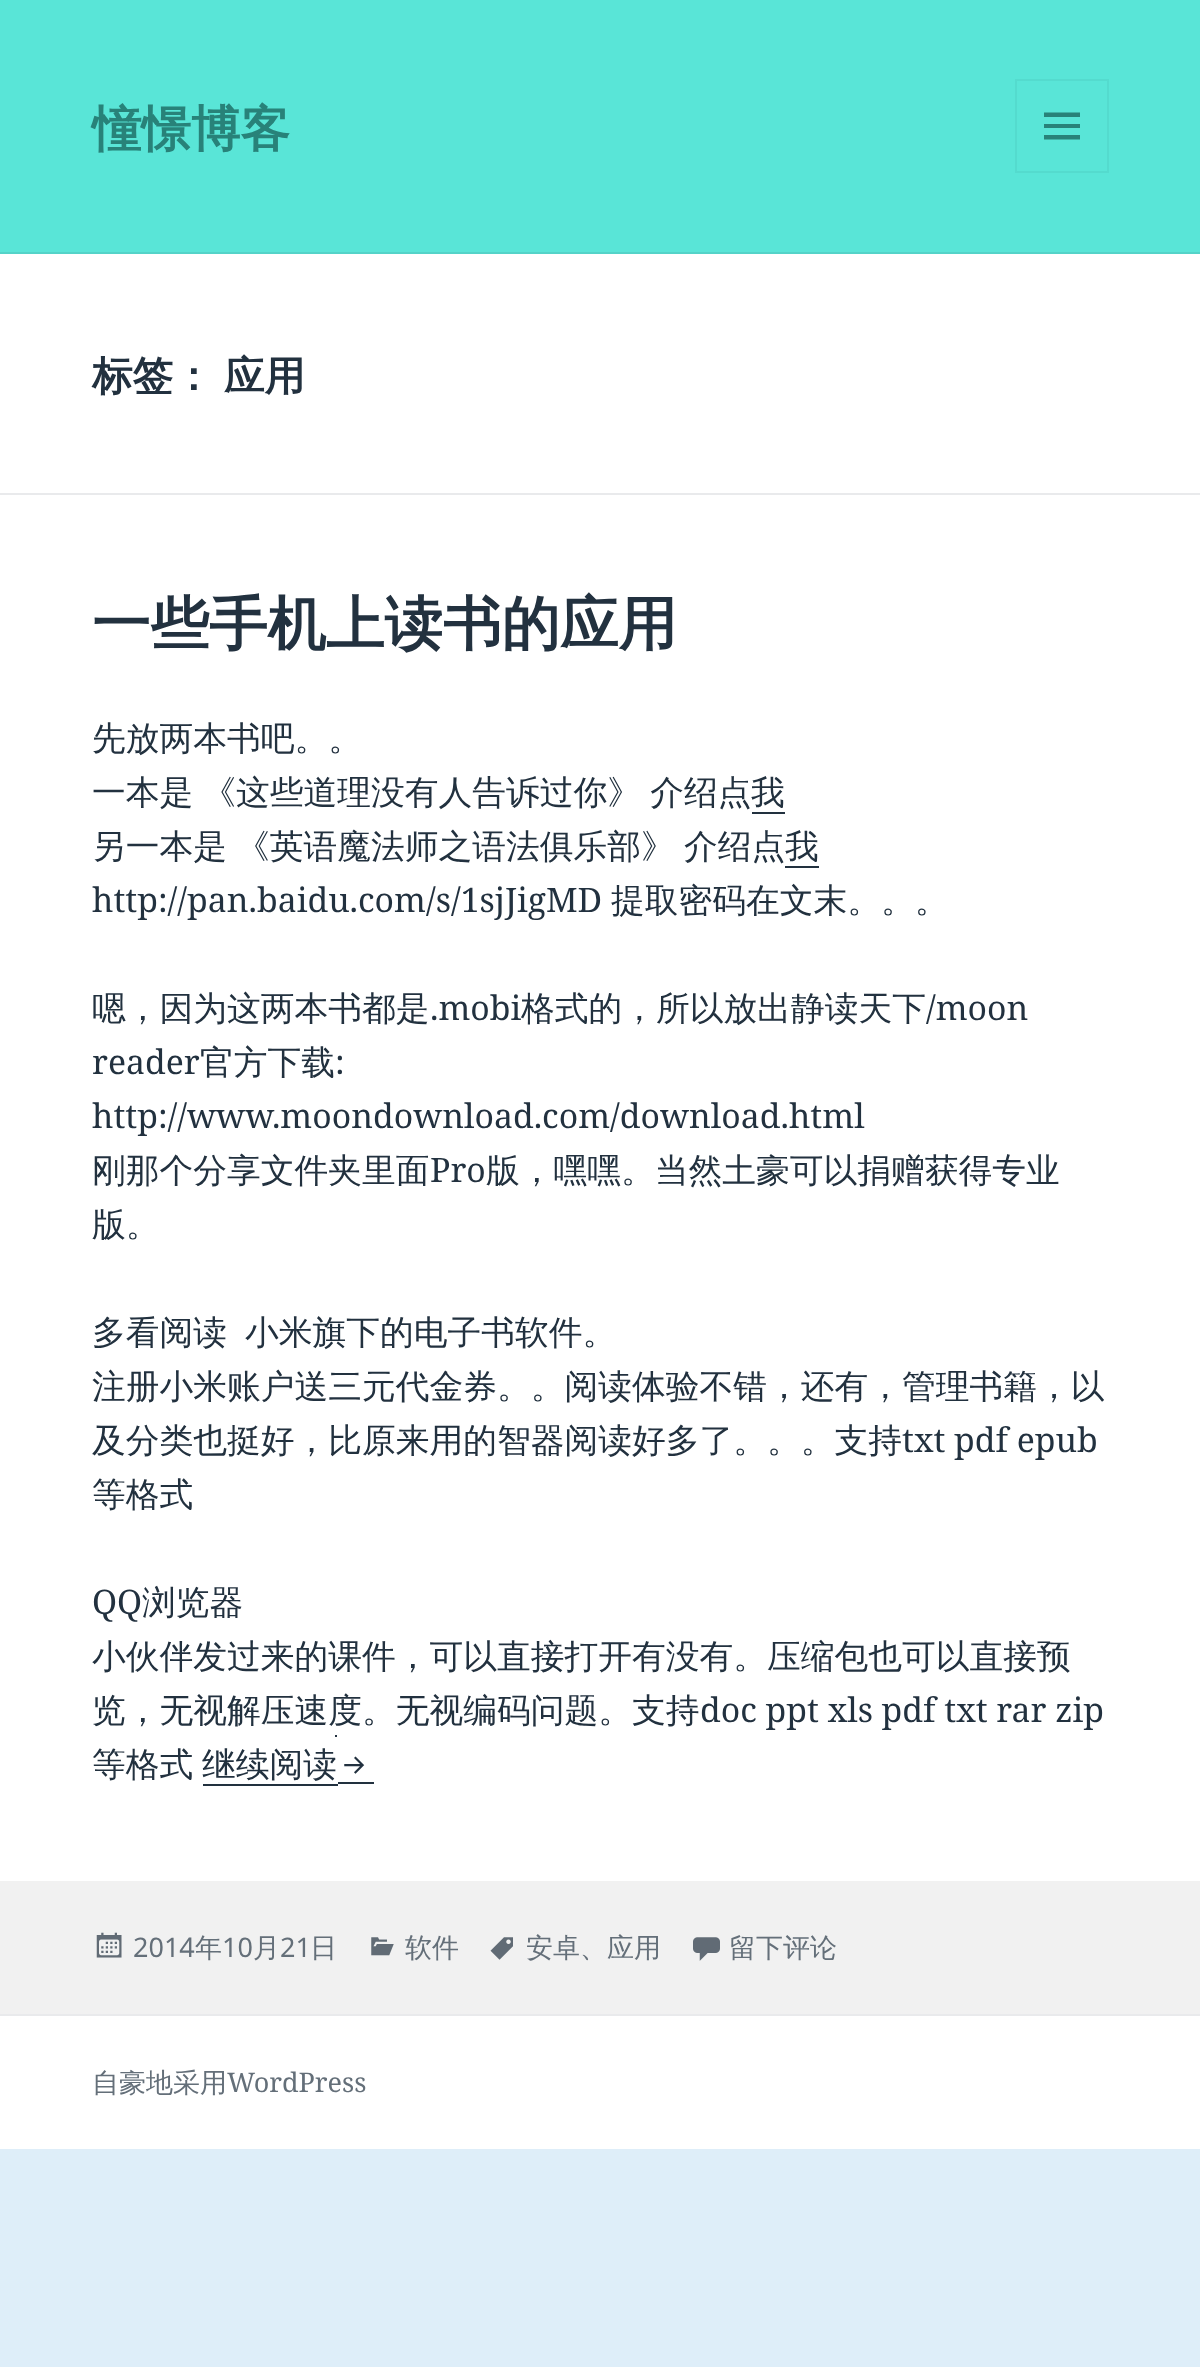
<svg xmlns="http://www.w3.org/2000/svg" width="1200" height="2367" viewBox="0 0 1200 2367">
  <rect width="100%" height="100%" fill="rgb(222,238,249)"/>
  <rect x="0" y="0" width="1200" height="252" fill="rgb(89,229,215)"/>
  <rect x="0" y="252" width="1200" height="2" fill="rgb(84,211,200)"/>
  <text x="92" y="146" font-family="WenQuanYi Zen Hei" font-size="49.5" font-weight="bold" fill="rgb(40,130,121)">憧憬博客</text>
  <rect x="1016" y="80" width="92" height="92" fill="none" stroke="rgb(84,219,206)" stroke-width="2"/>
  <path d="M1044 139.5V135H1080V139.5ZM1044 112.5H1080V117H1044ZM1044 128V124H1080V128Z" fill="rgb(40,130,121)"/>
  <rect x="0" y="254" width="1200" height="239" fill="rgb(255,255,255)"/>
  <rect x="0" y="493" width="1200" height="2" fill="rgb(233,234,236)"/>
  <g font-family="WenQuanYi Zen Hei" font-size="40.5" font-weight="bold" fill="rgb(34,49,63)">
    <text x="92" y="390">标签：</text>
    <text x="224" y="390">应用</text>
  </g>
  <rect x="0" y="495" width="1200" height="1386" fill="rgb(255,255,255)"/>
  <text x="92" y="644" font-family="WenQuanYi Zen Hei" font-size="58.5" font-weight="bold" fill="rgb(34,49,63)">一些手机上读书的应用</text>
  <g font-family="WenQuanYi Zen Hei" font-size="33.75" font-weight="500" fill="rgb(34,49,63)">
    <text>
      <tspan x="92" y="750">先放两本书吧。。</tspan>
      <tspan x="92" y="804" word-spacing="-1">一本是 《这些道理没有人告诉过你》 介绍点</tspan>
    </text>
    <text x="751" y="804">我</text>
  </g>
  <rect x="752" y="812" width="33" height="2" fill="rgb(34,49,63)"/>
  <g font-family="WenQuanYi Zen Hei" font-size="33.75" font-weight="500" fill="rgb(34,49,63)">
    <text x="92" y="858" word-spacing="-1">另一本是 《英语魔法师之语法俱乐部》 介绍点</text>
    <text x="785" y="858">我</text>
  </g>
  <rect x="785" y="866" width="34" height="2" fill="rgb(34,49,63)"/>
  <text x="92" y="912" font-family="Noto Serif" font-size="33.75" fill="rgb(34,49,63)">http://pan.baidu.com/s/1sjJigMD</text>
  <g font-family="WenQuanYi Zen Hei" font-size="33.75" font-weight="500" fill="rgb(34,49,63)">
    <text x="611" y="912">提取密码在文末。。。</text>
    <text x="92" y="1020">嗯，因为这两本书都是</text>
  </g>
  <text x="430" y="1020" font-family="Noto Serif" font-size="33.75" fill="rgb(34,49,63)">.mobi</text>
  <text x="521" y="1020" font-family="WenQuanYi Zen Hei" font-size="33.75" font-weight="500" fill="rgb(34,49,63)">格式的，所以放出静读天下</text>
  <g font-family="Noto Serif" font-size="33.75" fill="rgb(34,49,63)">
    <text x="926" y="1020">/moon</text>
    <text x="92" y="1074">reader</text>
  </g>
  <text x="200" y="1074" font-family="WenQuanYi Zen Hei" font-size="33.75" font-weight="500" fill="rgb(34,49,63)">官方下载</text>
  <g font-family="Noto Serif" font-size="33.75" fill="rgb(34,49,63)">
    <text x="335" y="1074">:</text>
    <text x="92" y="1128">http://www.moondownload.com/download.html</text>
  </g>
  <text x="92" y="1182" font-family="WenQuanYi Zen Hei" font-size="33.75" font-weight="500" fill="rgb(34,49,63)">刚那个分享文件夹里面</text>
  <text x="430" y="1182" font-family="Noto Serif" font-size="33.75" fill="rgb(34,49,63)">Pro</text>
  <g font-family="WenQuanYi Zen Hei" font-size="33.75" font-weight="500" fill="rgb(34,49,63)">
    <text x="486" y="1182">版，嘿嘿。当然土豪可以捐赠获得专业</text>
    <text x="92" y="1236">版。</text>
    <text x="92" y="1344">多看阅读</text>
    <text x="245" y="1344">小米旗下的电子书软件。</text>
    <text>
      <tspan x="92" y="1398">注册小米账户送三元代金券。。阅读体验不错，还有，管理书籍，以</tspan>
      <tspan x="92" y="1452">及分类也挺好，比原来用的智器阅读好多了。。。支持</tspan>
    </text>
  </g>
  <text x="902" y="1452" font-family="Noto Serif" font-size="33.75" fill="rgb(34,49,63)">txt pdf epub</text>
  <text x="92" y="1506" font-family="WenQuanYi Zen Hei" font-size="33.75" font-weight="500" fill="rgb(34,49,63)">等格式</text>
  <text x="92" y="1614" font-family="Noto Serif" font-size="33.75" fill="rgb(34,49,63)">QQ</text>
  <g font-family="WenQuanYi Zen Hei" font-size="33.75" font-weight="500" fill="rgb(34,49,63)">
    <text x="142" y="1614">浏览器</text>
    <text>
      <tspan x="92" y="1668">小伙伴发过来的课件，可以直接打开有没有。压缩包也可以直接预</tspan>
      <tspan x="92" y="1722">览，无视解压速度。无视编码问题。支持</tspan>
    </text>
  </g>
  <text x="700" y="1722" font-family="Noto Serif" font-size="33.75" fill="rgb(34,49,63)">doc ppt xls pdf txt rar zip</text>
  <text x="92" y="1776" font-family="WenQuanYi Zen Hei" font-size="33.75" font-weight="500" fill="rgb(34,49,63)">等格式</text>
  <rect x="203" y="1784" width="135" height="2" fill="rgb(34,49,63)"/>
  <rect x="335" y="1735" width="2" height="2" fill="rgb(34,49,63)"/>
  <rect x="338" y="1782" width="36" height="2" fill="rgb(34,49,63)"/>
  <text x="202" y="1776" font-family="WenQuanYi Zen Hei" font-size="33.75" font-weight="500" fill="rgb(34,49,63)">继续阅读</text>
  <image x="344" y="1756" width="21" height="18" href="pic1.png"/>
  <rect x="0" y="1881" width="1200" height="133" fill="rgb(241,241,241)"/>
  <image x="96" y="1932" width="26" height="26" href="pic2.png"/>
  <text x="133" y="1957" font-family="Noto Sans" font-size="27" fill="rgb(100,111,121)">2014</text>
  <text x="195" y="1957" font-family="WenQuanYi Zen Hei" font-size="27" font-weight="500" fill="rgb(100,111,121)">年</text>
  <text x="222" y="1957" font-family="Noto Sans" font-size="27" fill="rgb(100,111,121)">10</text>
  <text x="253" y="1957" font-family="WenQuanYi Zen Hei" font-size="27" font-weight="500" fill="rgb(100,111,121)">月</text>
  <text x="280" y="1957" font-family="Noto Sans" font-size="27" fill="rgb(100,111,121)">21</text>
  <text x="310" y="1957" font-family="WenQuanYi Zen Hei" font-size="27" font-weight="500" fill="rgb(100,111,121)">日</text>
  <image x="371" y="1937" width="23" height="19" href="pic3.png"/>
  <text x="405" y="1957" font-family="WenQuanYi Zen Hei" font-size="27" font-weight="500" fill="rgb(100,111,121)">软件</text>
  <image x="490" y="1937" width="23" height="23" href="pic4.png"/>
  <text x="526" y="1957" font-family="WenQuanYi Zen Hei" font-size="27" font-weight="500" fill="rgb(100,111,121)">安卓、应用</text>
  <image x="693" y="1937" width="27" height="24" href="pic5.png"/>
  <text x="729" y="1957" font-family="WenQuanYi Zen Hei" font-size="27" font-weight="500" fill="rgb(100,111,121)">留下评论</text>
  <rect x="0" y="2016" width="1200" height="133" fill="rgb(255,255,255)"/>
  <rect x="0" y="2014" width="1200" height="2" fill="rgb(233,234,236)"/>
  <text x="92" y="2092" font-family="WenQuanYi Zen Hei" font-size="27" font-weight="500" fill="rgb(100,111,121)">自豪地采用</text>
  <text x="227" y="2092" font-family="Noto Serif" font-size="27" fill="rgb(100,111,121)">WordPress</text>
</svg>
